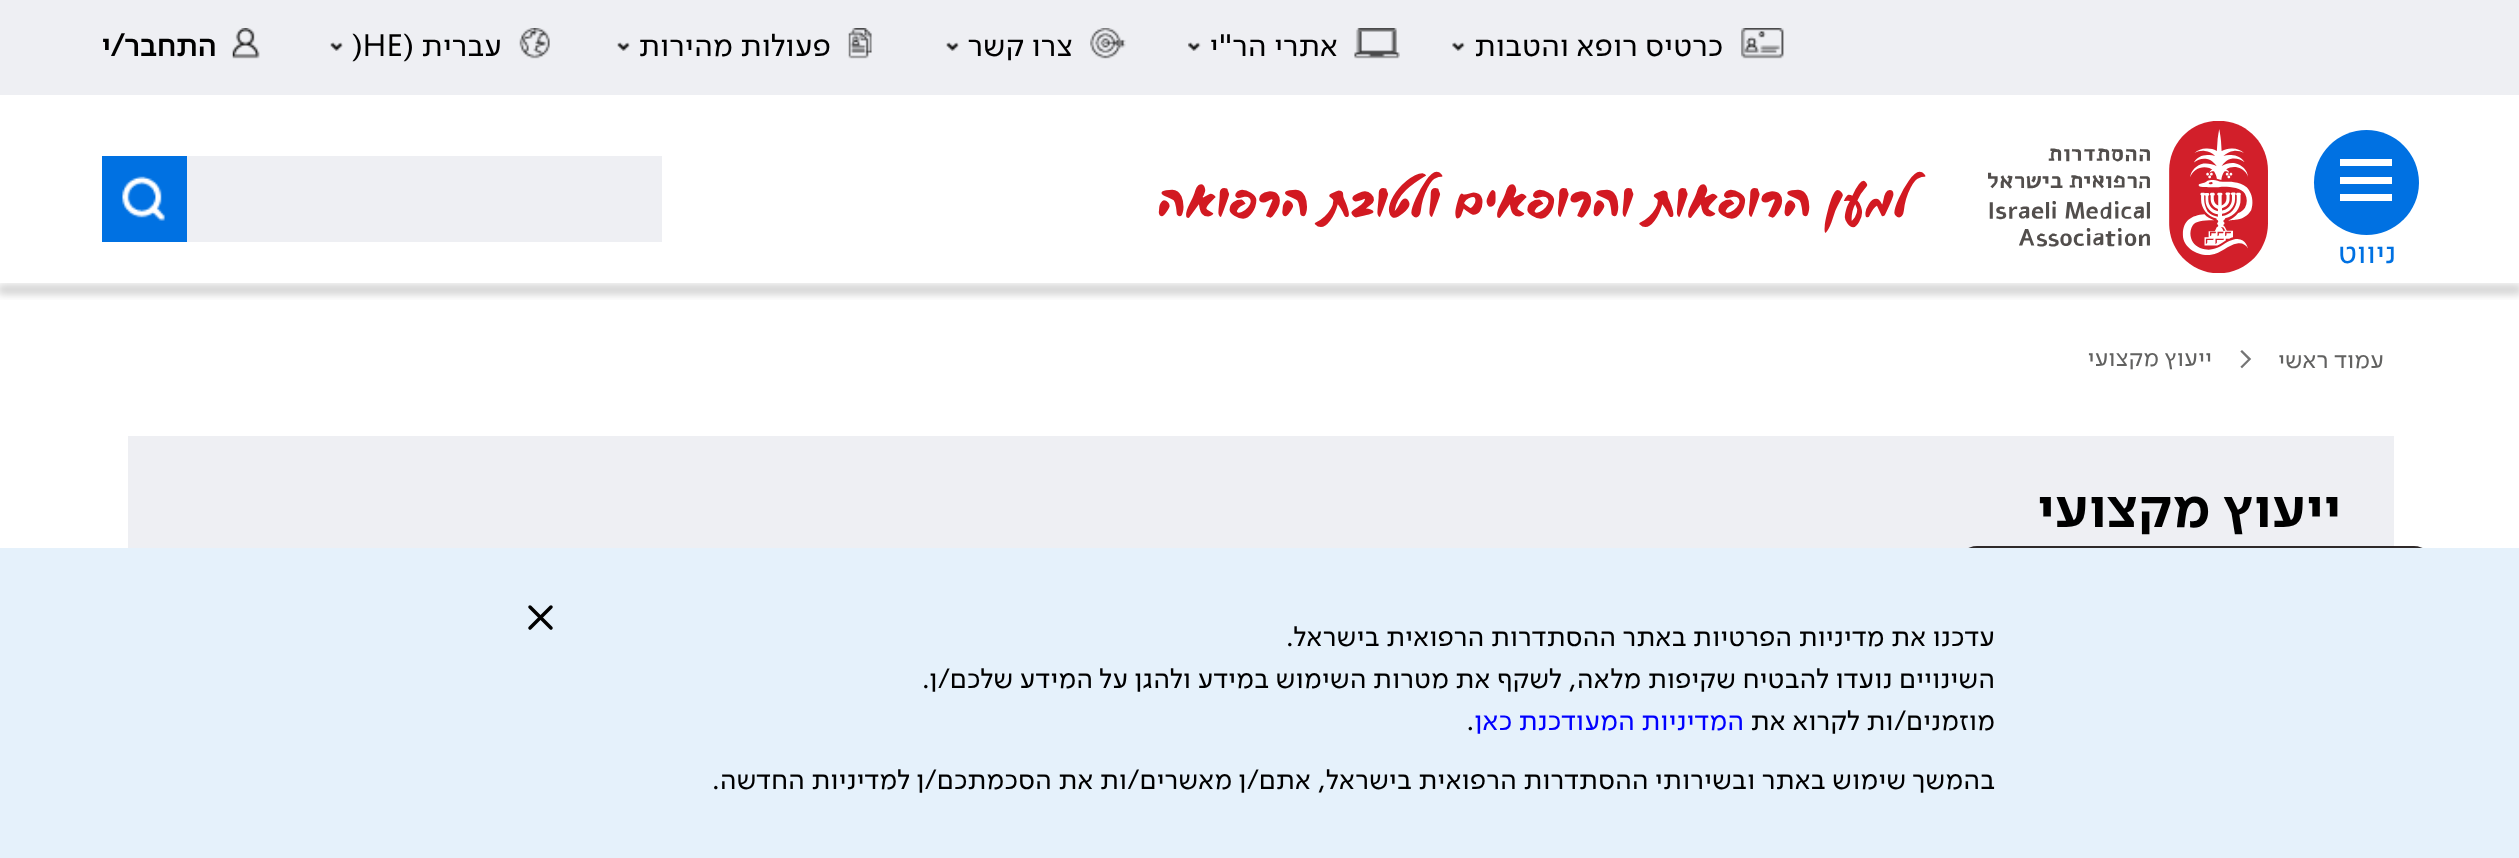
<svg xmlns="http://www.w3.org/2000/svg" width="2519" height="858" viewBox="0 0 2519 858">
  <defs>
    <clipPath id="clip1"><rect x="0" y="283" width="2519" height="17"/></clipPath>
    <linearGradient id="g1" gradientUnits="userSpaceOnUse" x1="2195" y1="546" x2="2195" y2="807"><stop offset="0" stop-color="rgb(47,41,41)"/><stop offset="1" stop-color="rgb(17,17,17)"/></linearGradient>
  </defs>
  <rect width="100%" height="100%" fill="rgb(255,255,255)"/>
  <rect x="0" y="0" width="2519" height="95" fill="rgb(238,239,243)"/>
  <image x="1741" y="28" width="43" height="31" href="pic1.png"/>
  <image x="1452" y="42" width="13" height="9" href="pic2.png"/>
  <text x="1723" y="56" font-family="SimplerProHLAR" font-size="31.5" direction="rtl" fill="rgb(0,0,0)">כרטיס רופא והטבות</text>
  <image x="1354" y="28" width="46" height="31" href="pic3.png"/>
  <image x="1188" y="42" width="13" height="9" href="pic4.png"/>
  <text x="1338" y="56" font-family="SimplerProHLAR" font-size="31.5" direction="rtl" fill="rgb(0,0,0)">אתרי הר"י</text>
  <image x="1090" y="28" width="36" height="31" href="pic5.png"/>
  <image x="946" y="42" width="13" height="9" href="pic6.png"/>
  <text x="1073" y="56" font-family="SimplerProHLAR" font-size="31.5" direction="rtl" fill="rgb(0,0,0)">צרו קשר</text>
  <image x="848" y="28" width="24" height="31" href="pic7.png"/>
  <image x="617" y="42" width="13" height="9" href="pic6.png"/>
  <text x="831" y="56" font-family="SimplerProHLAR" font-size="31.5" direction="rtl" fill="rgb(0,0,0)">פעולות מהירות</text>
  <image x="519" y="28" width="31" height="31" href="pic8.png"/>
  <image x="330" y="42" width="13" height="9" href="pic6.png"/>
  <text x="502" y="56" font-family="SimplerProHLAR" font-size="31.5" direction="rtl" fill="rgb(0,0,0)">עברית (</text>
  <text x="352" y="56" font-family="SimplerProHLAR" font-size="31.5" fill="rgb(0,0,0)">)HE</text>
  <image x="232" y="28" width="28" height="31" href="pic9.png"/>
  <text x="216" y="56" font-family="'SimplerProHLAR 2'" font-size="31.5" font-weight="bold" direction="rtl" fill="rgb(0,0,0)">התחבר/י</text>
  <image x="1988" y="121" width="280" height="152" href="pic10.png"/>
  <text x="1910" y="216" font-family="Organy" font-size="70" direction="rtl" fill="rgb(210,25,33)">למען הרופאות והרופאים ולטובת הרפואה</text>
  <circle cx="2366.5" cy="182.5" r="52.5" fill="rgb(0,113,226)"/>
  <rect x="2340" y="194" width="52" height="7" fill="rgb(255,255,255)"/>
  <rect x="2340" y="159" width="52" height="7" fill="rgb(255,255,255)"/>
  <rect x="2340" y="177" width="52" height="7" fill="rgb(255,255,255)"/>
  <text x="2396" y="263" font-family="SimplerProHLAR" font-size="31.5" direction="rtl" fill="rgb(0,113,226)">ניווט</text>
  <rect x="187" y="156" width="475" height="86" fill="rgb(238,239,243)"/>
  <rect x="102" y="156" width="85" height="86" fill="rgb(0,113,226)"/>
  <image x="122" y="176" width="43" height="45" href="pic11.png"/>
  <g clip-path="url(#clip1)">
    <rect x="-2" y="285" width="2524" height="9" fill="rgba(0,0,0,0.2)" filter="blur(4.5px)"/>
  </g>
  <text x="2384" y="368" font-family="SimplerProHLAR" font-size="24.5" direction="rtl" fill="rgb(98,98,97)">עמוד ראשי</text>
  <text x="2238" y="368" font-family="SimplerProHLAR" font-size="31.5" fill="rgb(117,117,117)">&gt;</text>
  <text x="2212" y="366" font-family="SimplerProHLAR" font-size="24.5" direction="rtl" fill="rgb(98,98,97)">ייעוץ מקצועי</text>
  <rect x="128" y="436" width="2266" height="112" fill="rgb(238,239,243)"/>
  <text x="2341" y="527" font-family="SimplerProHLAR" font-size="56" font-weight="bold" direction="rtl" fill="rgb(0,0,0)">ייעוץ מקצועי</text>
  <rect x="1958" y="546" width="475" height="261" rx="19" fill="url(#g1)"/>
  <rect x="0" y="548" width="2519" height="310" fill="rgb(229,241,251)"/>
  <path d="M551 607L530 628M530 607L551 628" fill="none" stroke="rgb(0,0,0)" stroke-width="3.5" stroke-linecap="round" stroke-linejoin="round"/>
  <g font-family="SimplerProHLAR" font-size="28" direction="rtl" fill="rgb(0,0,0)">
    <text>
      <tspan x="1995" y="646">עדכנו את מדיניות הפרטיות באתר ההסתדרות הרפואית בישראל.</tspan>
      <tspan x="1995" y="688">השינויים נועדו להבטיח שקיפות מלאה, לשקף את מטרות השימוש במידע ולהגן על המידע שלכם/ן.</tspan>
      <tspan x="1995" y="730">מוזמנים/ות לקרוא את</tspan>
    </text>
  </g>
  <text x="1744" y="730" font-family="SimplerProHLAR" font-size="28" direction="rtl" fill="rgb(0,0,255)">המדיניות המעודכנת כאן</text>
  <text x="1467" y="730" font-family="SimplerProHLAR" font-size="28" fill="rgb(0,0,0)">.</text>
  <text x="1995" y="789" font-family="SimplerProHLAR" font-size="28" direction="rtl" fill="rgb(0,0,0)">בהמשך שימוש באתר ובשירותי ההסתדרות הרפואית בישראל, אתם/ן מאשרים/ות את הסכמתכם/ן למדיניות החדשה.</text>
</svg>
